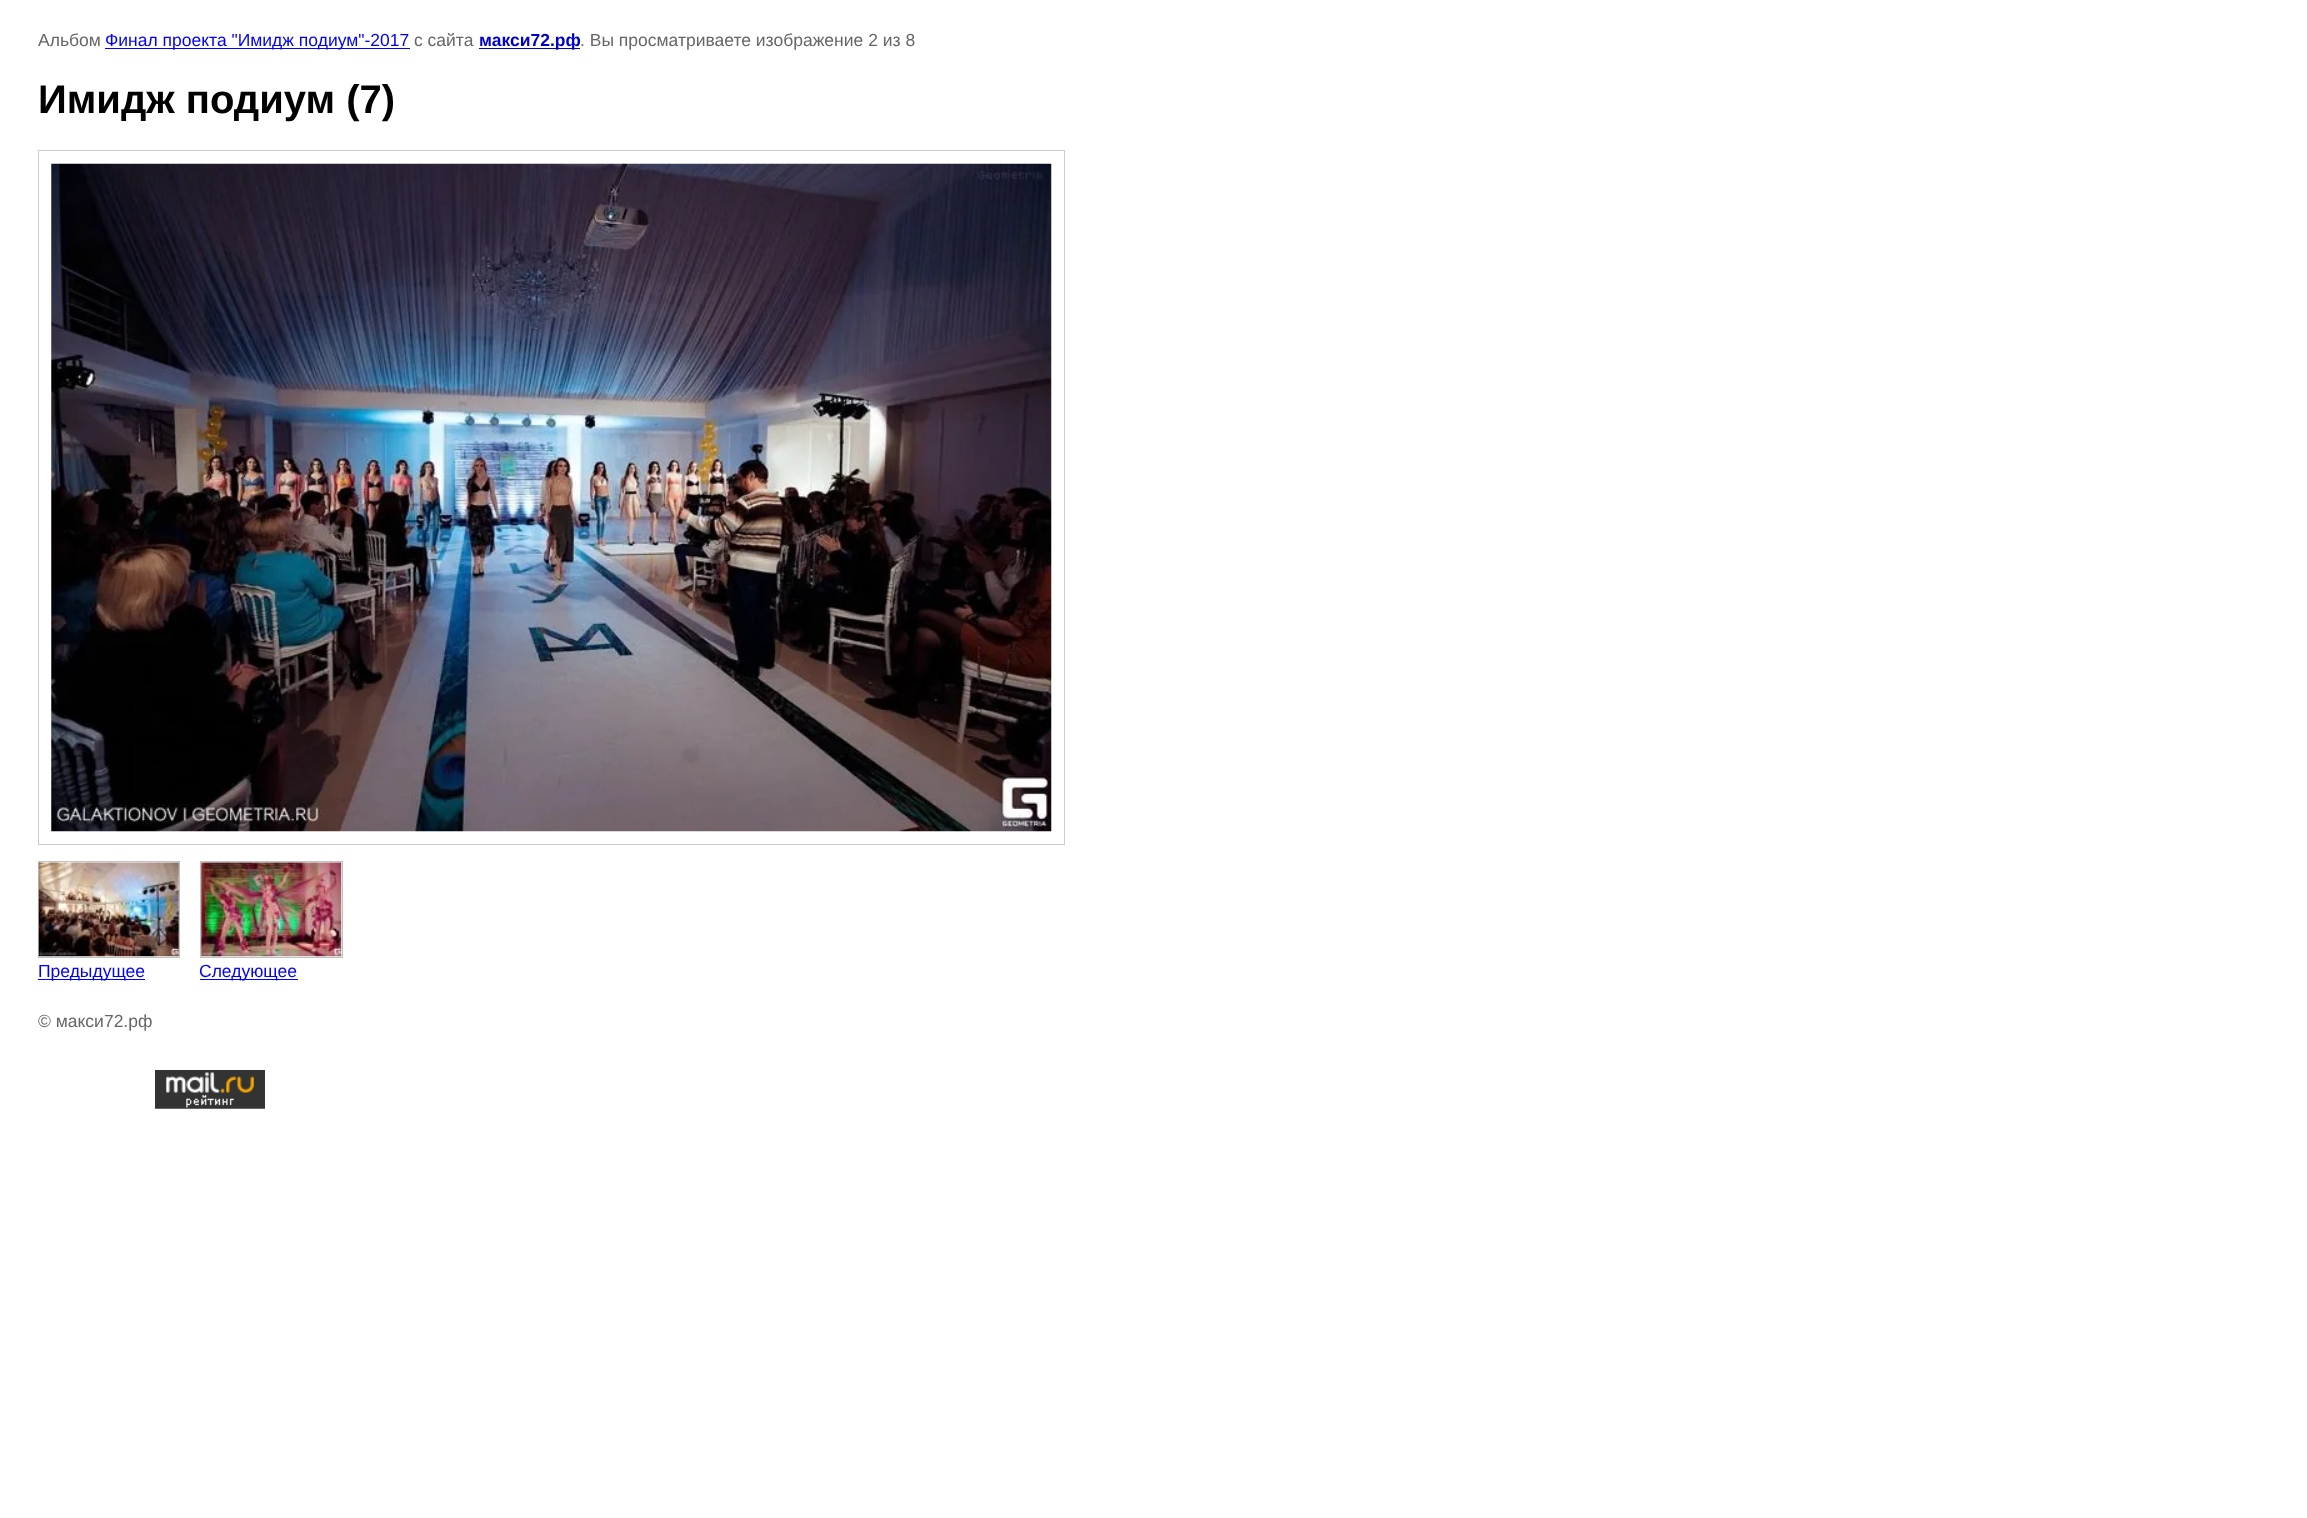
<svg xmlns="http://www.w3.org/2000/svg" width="2307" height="1518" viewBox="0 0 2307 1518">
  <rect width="100%" height="100%" fill="rgb(255,255,255)"/>
  <text x="38" y="46" font-family="Liberation Sans" font-size="17.5" fill="rgb(102,102,102)">Альбом</text>
  <rect x="105" y="48" width="305" height="1" fill="rgb(0,0,255)"/>
  <text x="105" y="46" font-family="Liberation Sans" font-size="17.5" fill="rgb(0,0,255)">Финал проекта "Имидж подиум"-2017</text>
  <text x="414" y="46" font-family="Liberation Sans" font-size="17.5" fill="rgb(102,102,102)">с сайта</text>
  <rect x="479" y="48" width="101" height="1" fill="rgb(0,0,204)"/>
  <text x="479" y="46" font-family="Liberation Sans" font-size="17.5" font-weight="bold" fill="rgb(0,0,204)">макси72.рф</text>
  <text x="580" y="46" font-family="Liberation Sans" font-size="17.5" fill="rgb(102,102,102)">. Вы просматриваете изображение 2 из 8</text>
  <text x="38" y="113" font-family="Liberation Sans" font-size="40" font-weight="bold" fill="rgb(0,0,0)">Имидж подиум (7)</text>
  <rect x="38.5" y="150.5" width="1026" height="694" fill="none" stroke="rgb(204,204,204)"/>
  <image x="51" y="163" width="1001" height="669" href="pic1.png"/>
  <rect x="38.5" y="861.5" width="141" height="96" fill="none" stroke="rgb(192,192,192)"/>
  <image x="38" y="862" width="141" height="95" href="pic2.png"/>
  <rect x="38" y="979" width="107" height="1" fill="rgb(0,0,255)"/>
  <text x="38" y="977" font-family="Liberation Sans" font-size="17.5" fill="rgb(0,0,255)">Предыдущее</text>
  <rect x="200.5" y="861.5" width="142" height="96" fill="none" stroke="rgb(192,192,192)"/>
  <image x="201" y="862" width="141" height="95" href="pic3.png"/>
  <rect x="200" y="979" width="98" height="1" fill="rgb(0,0,255)"/>
  <text x="199" y="977" font-family="Liberation Sans" font-size="17.5" fill="rgb(0,0,255)">Следующее</text>
  <text x="38" y="1027" font-family="Liberation Sans" font-size="17.5" fill="rgb(102,102,102)">© макси72.рф</text>
  <image x="155" y="1070" width="110" height="39" href="pic4.png"/>
</svg>
